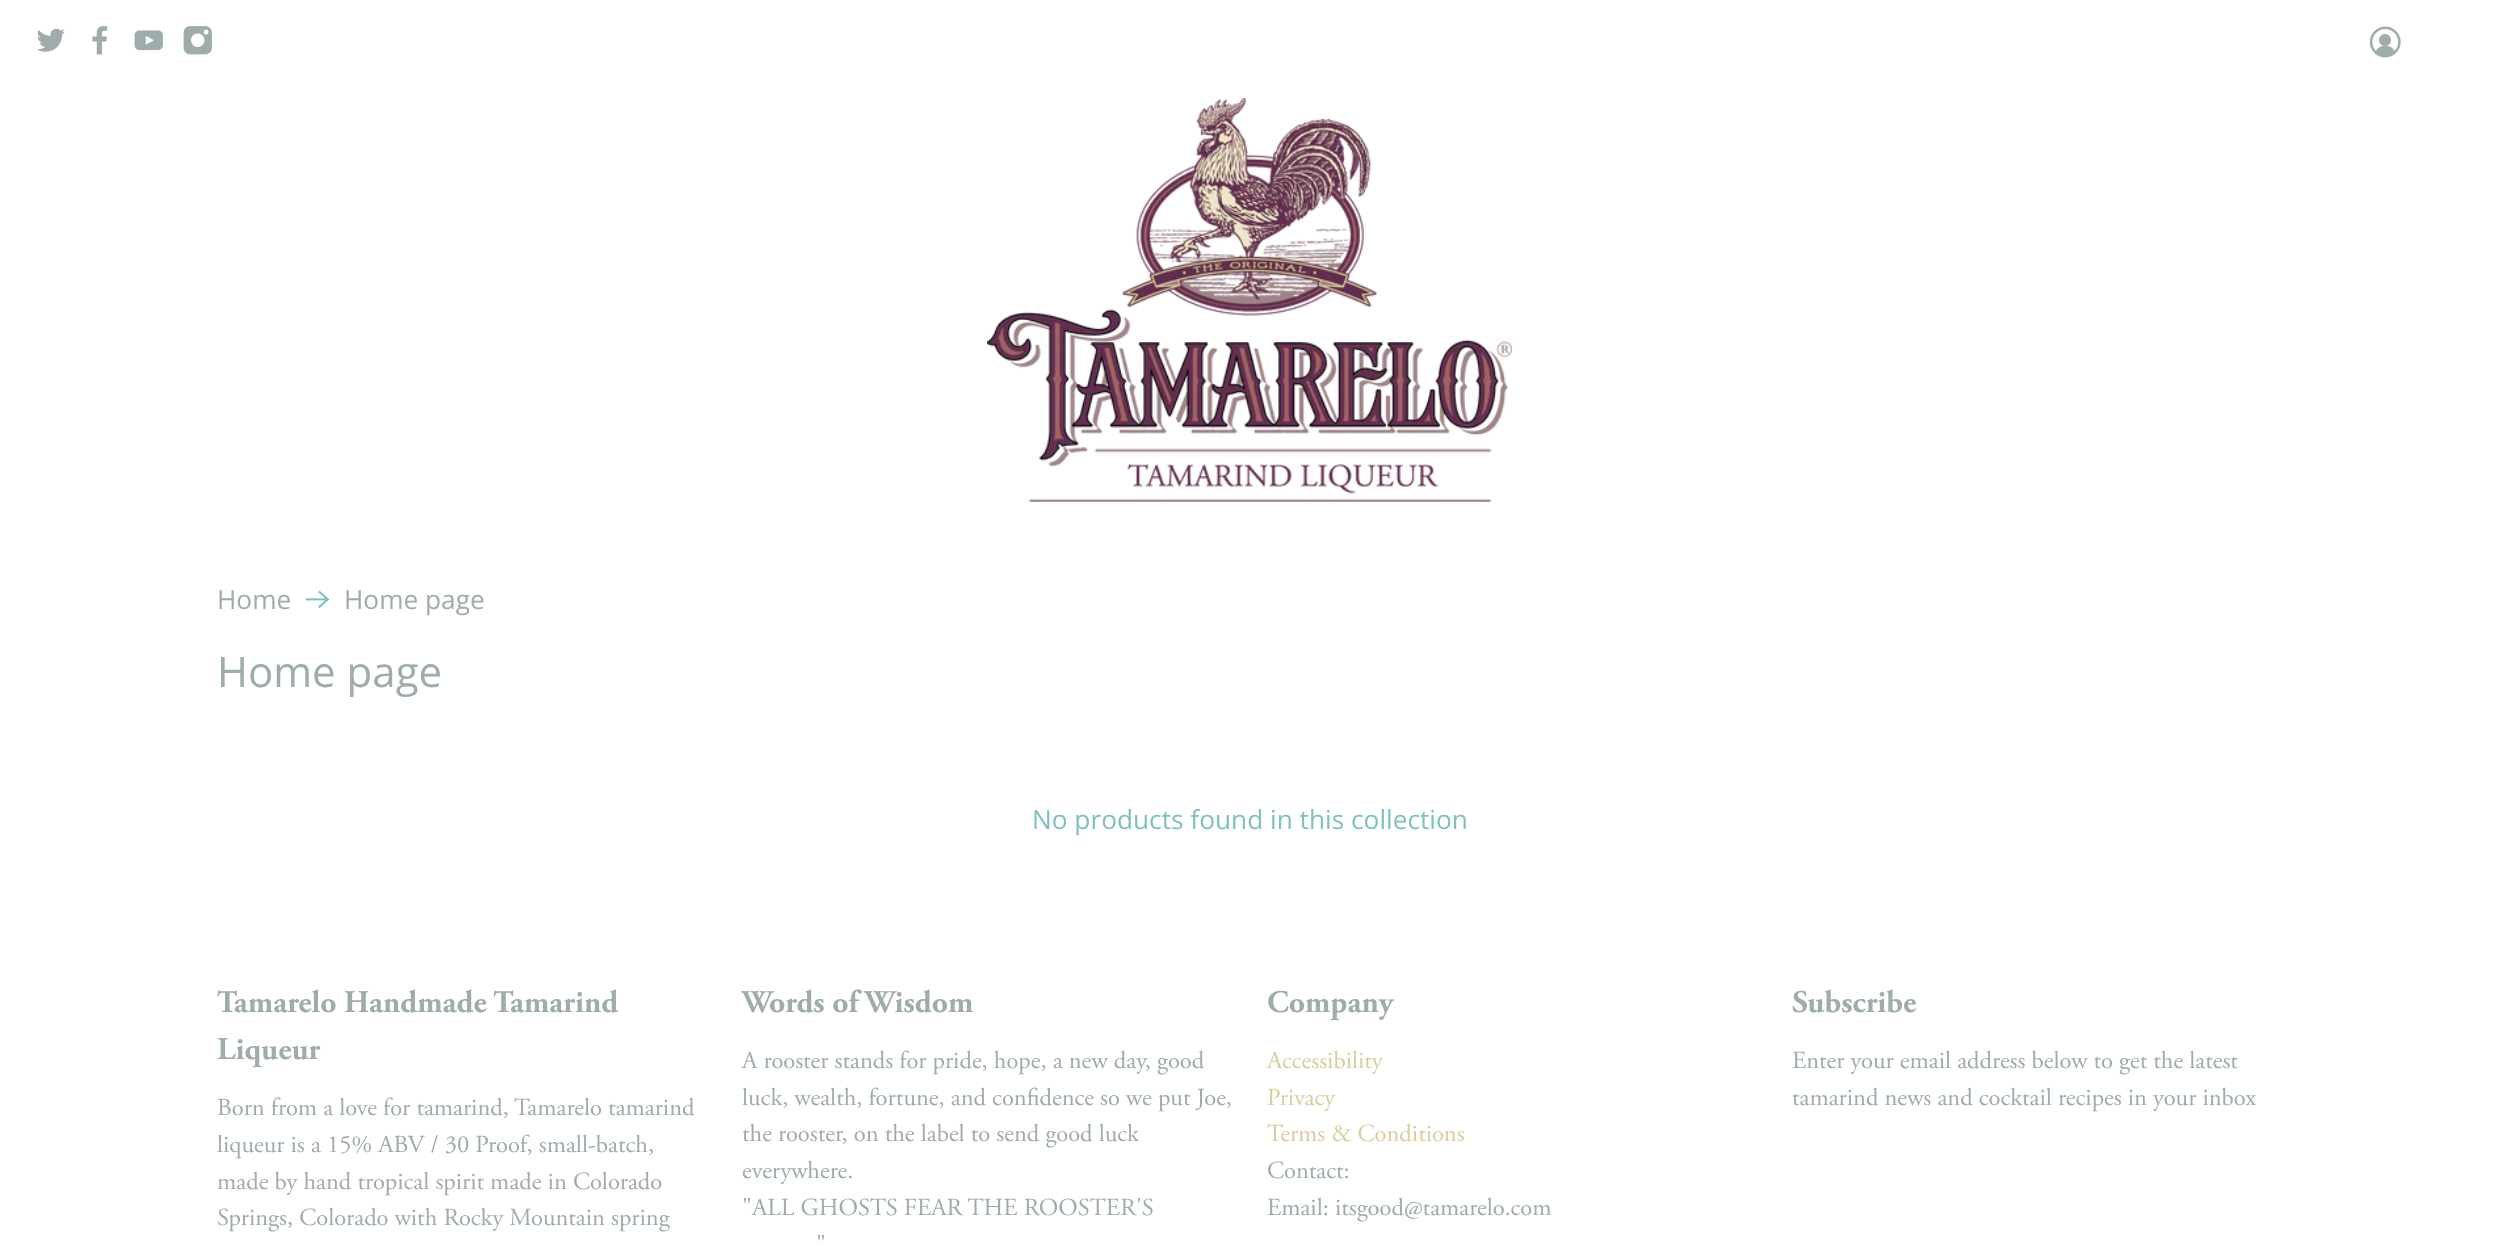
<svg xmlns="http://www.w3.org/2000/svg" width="2498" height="1246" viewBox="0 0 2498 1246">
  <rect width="100%" height="100%" fill="rgb(255,255,255)"/>
  <image x="36" y="28" width="29" height="24" href="pic1.png"/>
  <image x="92" y="26" width="16" height="29" href="pic2.png"/>
  <image x="134" y="30" width="29" height="21" href="pic3.png"/>
  <image x="183" y="26" width="29" height="29" href="pic4.png"/>
  <image x="2370" y="26" width="31" height="32" href="pic5.png"/>
  <image x="987" y="98" width="525" height="404" href="pic6.png"/>
  <text x="217" y="609" font-family="Open Sans" font-size="26.25" fill="rgb(158,172,171)">Home</text>
  <image x="305" y="590" width="25" height="18" href="pic7.png"/>
  <text x="344" y="609" font-family="Open Sans" font-size="26.25" fill="rgb(158,172,171)">Home page</text>
  <text x="217" y="687" font-family="Open Sans" font-size="42" fill="rgb(158,172,171)">Home page</text>
  <text x="1032" y="829" font-family="Open Sans" font-size="26.25" fill="rgb(126,193,194)">No products found in this collection</text>
  <g font-family="Adobe Garamond" font-size="31.5" font-weight="bold" fill="rgb(158,172,171)">
    <text>
      <tspan x="217" y="1012">Tamarelo Handmade Tamarind</tspan>
      <tspan x="217" y="1059">Liqueur</tspan>
    </text>
  </g>
  <g font-family="Adobe Garamond" font-size="24.5" fill="rgb(158,172,171)">
    <text>
      <tspan x="217" y="1115">Born from a love for tamarind, Tamarelo tamarind</tspan>
      <tspan x="217" y="1152">liqueur is a 15% ABV / 30 Proof, small-batch,</tspan>
      <tspan x="217" y="1189">made by hand tropical spirit made in Colorado</tspan>
      <tspan x="217" y="1225">Springs, Colorado with Rocky Mountain spring</tspan>
    </text>
  </g>
  <text x="742" y="1012" font-family="Adobe Garamond" font-size="31.5" font-weight="bold" fill="rgb(158,172,171)">Words of Wisdom</text>
  <g font-family="Adobe Garamond" font-size="24.5" fill="rgb(158,172,171)">
    <text>
      <tspan x="742" y="1068">A rooster stands for pride, hope, a new day, good</tspan>
      <tspan x="742" y="1105">luck, wealth, fortune, and confidence so we put Joe,</tspan>
      <tspan x="742" y="1141">the rooster, on the label to send good luck</tspan>
      <tspan x="742" y="1178">everywhere.</tspan>
      <tspan x="742" y="1215">"ALL GHOSTS FEAR THE ROOSTER'S</tspan>
    </text>
    <text x="816" y="1252">"</text>
  </g>
  <text x="1267" y="1012" font-family="Adobe Garamond" font-size="31.5" font-weight="bold" fill="rgb(158,172,171)">Company</text>
  <g font-family="Adobe Garamond" font-size="24.5" fill="rgb(219,205,155)">
    <text>
      <tspan x="1267" y="1068">Accessibility</tspan>
      <tspan x="1267" y="1105">Privacy</tspan>
      <tspan x="1267" y="1141">Terms &amp; Conditions</tspan>
    </text>
  </g>
  <g font-family="Adobe Garamond" font-size="24.5" fill="rgb(158,172,171)">
    <text>
      <tspan x="1267" y="1178">Contact:</tspan>
      <tspan x="1267" y="1215">Email: itsgood@tamarelo.com</tspan>
    </text>
  </g>
  <text x="1792" y="1012" font-family="Adobe Garamond" font-size="31.5" font-weight="bold" fill="rgb(158,172,171)">Subscribe</text>
  <g font-family="Adobe Garamond" font-size="24.5" fill="rgb(158,172,171)">
    <text>
      <tspan x="1792" y="1068">Enter your email address below to get the latest</tspan>
      <tspan x="1792" y="1105">tamarind news and cocktail recipes in your inbox</tspan>
    </text>
  </g>
</svg>
